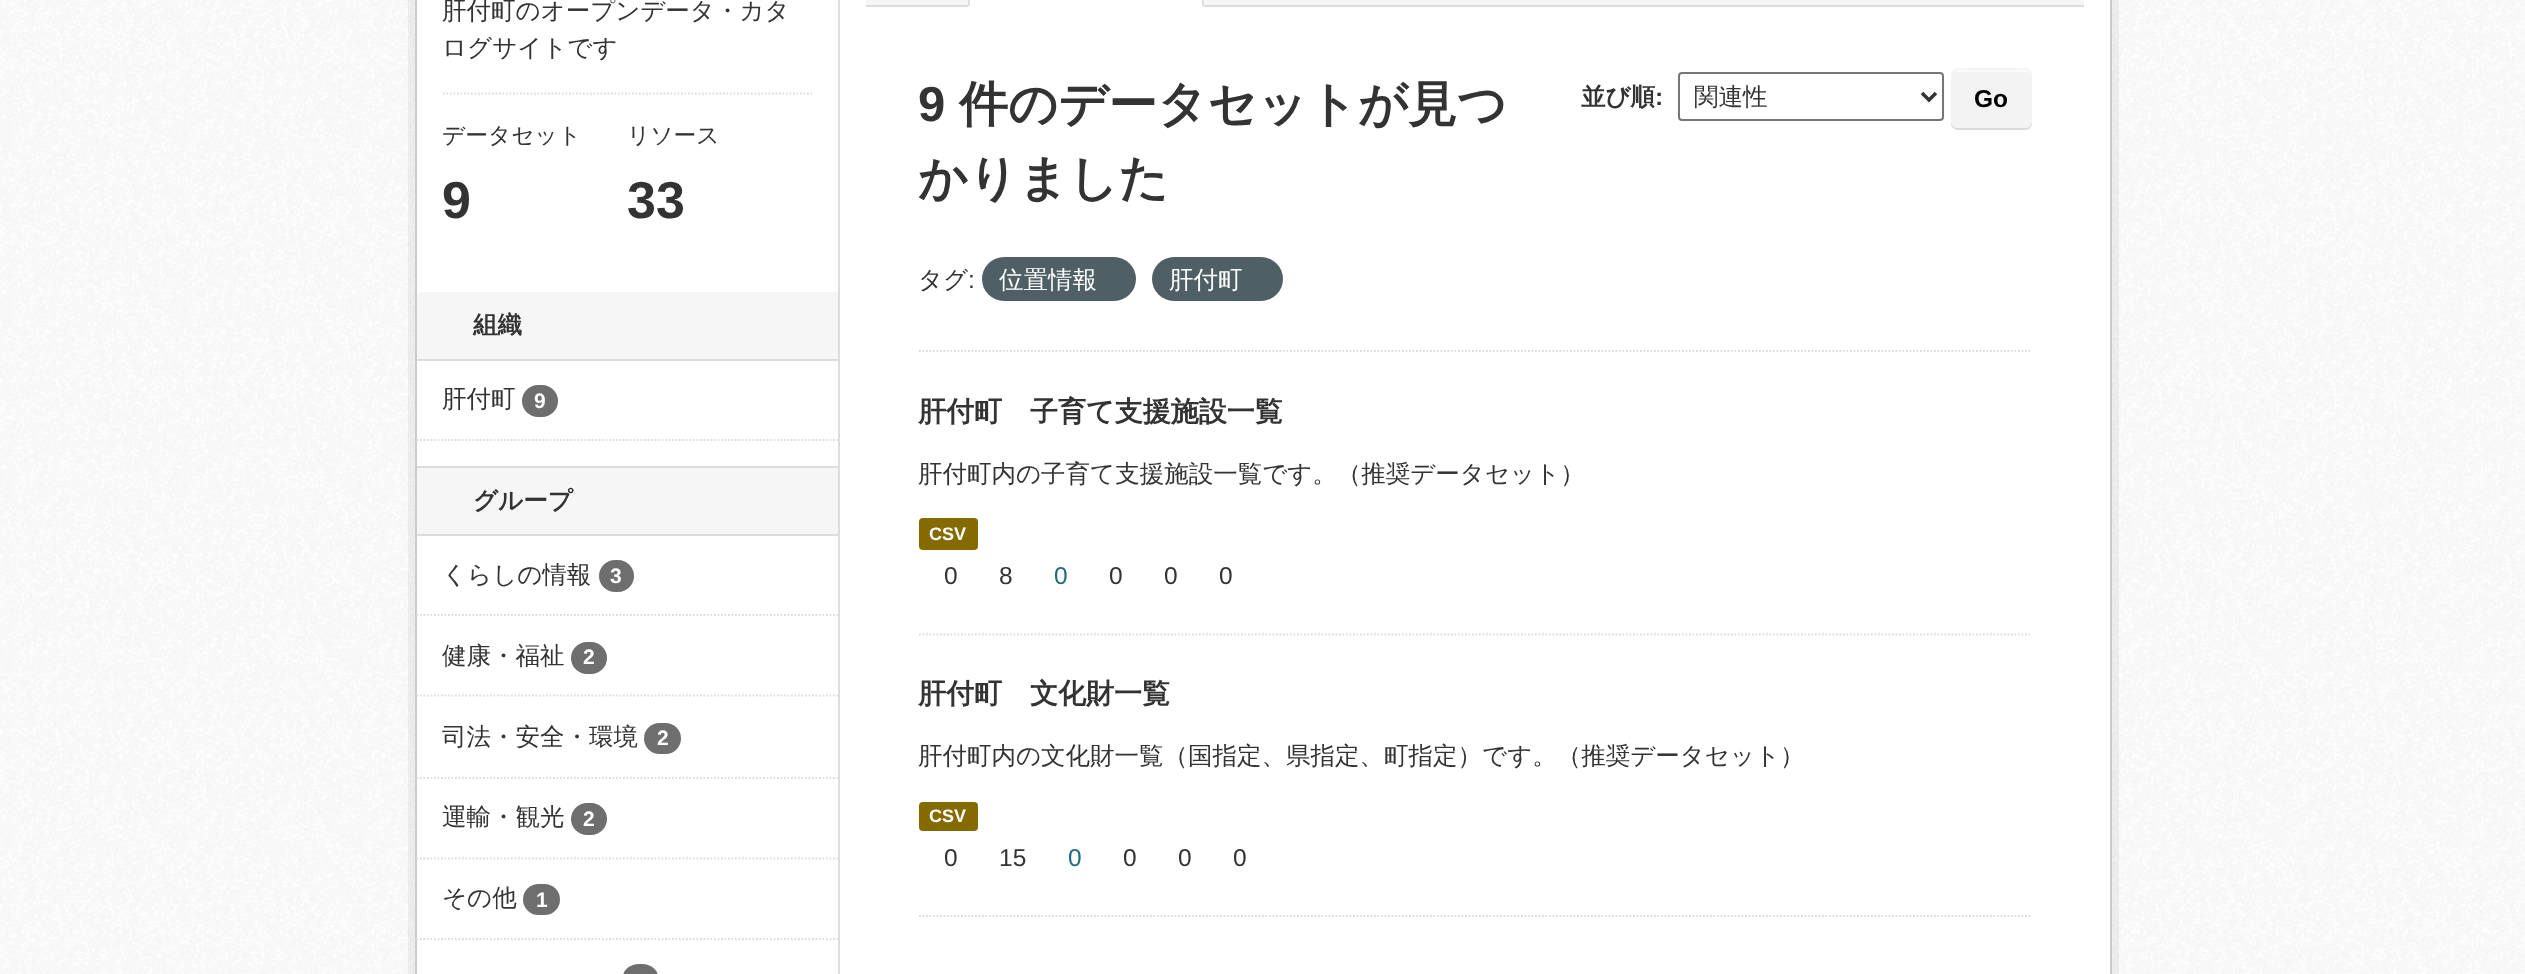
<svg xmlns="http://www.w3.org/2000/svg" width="2525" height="974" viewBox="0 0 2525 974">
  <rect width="100%" height="100%" fill="rgb(255,255,255)"/>
  <image x="0" y="0" width="2525" height="974" href="pic1.png"/>
  <rect x="411.5" y="-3.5" width="1704" height="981" fill="none" stroke="rgba(0,0,0,0.05)" stroke-width="7"/>
  <rect x="416" y="-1" width="1695" height="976" fill="rgb(255,255,255)" stroke="rgb(204,204,204)" stroke-width="2"/>
  <g font-family="WenQuanYi Zen Hei" font-size="24.5" font-weight="500" fill="rgb(51,51,51)">
    <text>
      <tspan x="442" y="19">肝付町のオープンデータ・カタ</tspan>
      <tspan x="442" y="56">ログサイトです</tspan>
    </text>
  </g>
  <path d="M443 93.5H812" fill="none" stroke="rgb(221,221,221)" stroke-width="1.8" stroke-dasharray="1.75 1.75"/>
  <text x="442" y="143" font-family="WenQuanYi Zen Hei" font-size="22.75" font-weight="500" fill="rgb(51,51,51)">データセット</text>
  <text x="442" y="218" font-family="Liberation Sans" font-size="52" font-weight="bold" fill="rgb(51,51,51)">9</text>
  <text x="627" y="143" font-family="WenQuanYi Zen Hei" font-size="22.75" font-weight="500" fill="rgb(51,51,51)">リソース</text>
  <text x="627" y="218" font-family="Liberation Sans" font-size="52" font-weight="bold" fill="rgb(51,51,51)">33</text>
  <path d="M422 292H838V361H417V297C417 294 419 292 422 292Z" fill="rgb(246,246,246)"/>
  <rect x="417" y="359" width="421" height="2" fill="rgb(221,221,221)"/>
  <text x="473" y="333" font-family="WenQuanYi Zen Hei" font-size="24.5" font-weight="bold" fill="rgb(51,51,51)">組織</text>
  <text x="442" y="407" font-family="WenQuanYi Zen Hei" font-size="24.5" font-weight="500" fill="rgb(51,51,51)">肝付町</text>
  <rect x="522" y="385" width="36" height="32" rx="16" fill="rgb(110,110,110)"/>
  <text x="534" y="408" font-family="Liberation Sans" font-size="21" font-weight="bold" fill="rgb(255,255,255)">9</text>
  <path d="M416.5 440H838" fill="none" stroke="rgb(221,221,221)" stroke-width="1.8" stroke-dasharray="1.75 1.75"/>
  <rect x="417" y="468" width="421" height="66" fill="rgb(246,246,246)"/>
  <rect x="417" y="466" width="421" height="2" fill="rgb(221,221,221)"/>
  <rect x="417" y="534" width="421" height="2" fill="rgb(221,221,221)"/>
  <text x="473" y="509" font-family="WenQuanYi Zen Hei" font-size="24.5" font-weight="bold" fill="rgb(51,51,51)">グループ</text>
  <path d="M416.5 615H838" fill="none" stroke="rgb(221,221,221)" stroke-width="1.8" stroke-dasharray="1.75 1.75"/>
  <text x="442" y="583" font-family="WenQuanYi Zen Hei" font-size="24.5" font-weight="500" fill="rgb(51,51,51)">くらしの情報</text>
  <rect x="599" y="560" width="35" height="32" rx="16" fill="rgb(110,110,110)"/>
  <text x="610" y="583" font-family="Liberation Sans" font-size="21" font-weight="bold" fill="rgb(255,255,255)">3</text>
  <path d="M416.5 695.5H838" fill="none" stroke="rgb(221,221,221)" stroke-width="1.8" stroke-dasharray="1.75 1.75"/>
  <text x="442" y="664" font-family="WenQuanYi Zen Hei" font-size="24.5" font-weight="500" fill="rgb(51,51,51)">健康・福祉</text>
  <rect x="571" y="642" width="36" height="32" rx="16" fill="rgb(110,110,110)"/>
  <text x="583" y="664" font-family="Liberation Sans" font-size="21" font-weight="bold" fill="rgb(255,255,255)">2</text>
  <path d="M416.5 778H838" fill="none" stroke="rgb(221,221,221)" stroke-width="1.8" stroke-dasharray="1.75 1.75"/>
  <text x="442" y="745" font-family="WenQuanYi Zen Hei" font-size="24.5" font-weight="500" fill="rgb(51,51,51)">司法・安全・環境</text>
  <rect x="644" y="723" width="37" height="31" rx="15.5" fill="rgb(110,110,110)"/>
  <text x="657" y="745" font-family="Liberation Sans" font-size="21" font-weight="bold" fill="rgb(255,255,255)">2</text>
  <path d="M416.5 858.5H838" fill="none" stroke="rgb(221,221,221)" stroke-width="1.8" stroke-dasharray="1.75 1.75"/>
  <text x="442" y="825" font-family="WenQuanYi Zen Hei" font-size="24.5" font-weight="500" fill="rgb(51,51,51)">運輸・観光</text>
  <rect x="571" y="803" width="36" height="32" rx="16" fill="rgb(110,110,110)"/>
  <text x="583" y="826" font-family="Liberation Sans" font-size="21" font-weight="bold" fill="rgb(255,255,255)">2</text>
  <path d="M416.5 939H838" fill="none" stroke="rgb(221,221,221)" stroke-width="1.8" stroke-dasharray="1.75 1.75"/>
  <text x="442" y="906" font-family="WenQuanYi Zen Hei" font-size="24.5" font-weight="500" fill="rgb(51,51,51)">その他</text>
  <rect x="523" y="884" width="37" height="31" rx="15.5" fill="rgb(110,110,110)"/>
  <text x="536" y="907" font-family="Liberation Sans" font-size="21" font-weight="bold" fill="rgb(255,255,255)">1</text>
  <rect x="623" y="964" width="35" height="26" rx="16" fill="rgb(110,110,110)"/>
  <rect x="838" y="0" width="2" height="974" fill="rgb(221,221,221)"/>
  <rect x="866" y="0" width="1218" height="5" fill="rgb(246,246,246)"/>
  <rect x="866" y="5" width="1218" height="2" fill="rgb(221,221,221)"/>
  <rect x="968" y="0" width="236" height="7" fill="rgb(255,255,255)"/>
  <path d="M1202-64L1204-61V7L1202 5V-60C1202-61 1202-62 1201-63Z" fill="rgb(221,221,221)"/>
  <path d="M970-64L968-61V7L970 5V-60C970-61 970-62 971-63Z" fill="rgb(221,221,221)"/>
  <path d="M919 351H2032" fill="none" stroke="rgb(221,221,221)" stroke-width="1.8" stroke-dasharray="1.75 1.75"/>
  <text x="918" y="121" font-family="Liberation Sans" font-size="49" font-weight="bold" fill="rgb(51,51,51)">9</text>
  <g font-family="WenQuanYi Zen Hei" font-size="49" font-weight="bold" fill="rgb(51,51,51)">
    <text x="959" y="121">件のデータセットが見つ</text>
    <text x="918" y="195">かりました</text>
  </g>
  <text x="1581" y="105" font-family="WenQuanYi Zen Hei" font-size="24.5" font-weight="bold" fill="rgb(51,51,51)">並び順</text>
  <text x="1655" y="105" font-family="Liberation Sans" font-size="24.5" font-weight="bold" fill="rgb(51,51,51)">:</text>
  <rect x="1679" y="73" width="264" height="47" rx="3" fill="none" stroke="rgb(118,118,118)" stroke-width="2"/>
  <path d="M1922 93L1929 100L1936 93" fill="none" stroke="rgb(51,51,51)" stroke-width="3.5"/>
  <text x="1694" y="105" font-family="WenQuanYi Zen Hei" font-size="24.5" font-weight="500" fill="rgb(51,51,51)">関連性</text>
  <path d="M1951 75V123C1951 127 1954 130 1958 130H2025C2029 130 2032 127 2032 123V75V113C2032 130 2030 128 2014 128H1969C1953 128 1951 130 1951 113Z" fill="rgb(217,217,217)"/>
  <rect x="1951" y="68" width="81" height="60" rx="7" fill="rgb(243,243,243)"/>
  <path d="M1958 72H2025C2028 72 2030 74 2030 77C2030 67 2022 70 2014 70H1969C1961 70 1953 67 1953 77C1953 74 1955 72 1958 72Z" fill="rgb(250,250,250)"/>
  <text x="1974" y="107" font-family="Liberation Sans" font-size="24.5" font-weight="bold" fill="rgb(0,0,0)">Go</text>
  <text x="918" y="288" font-family="WenQuanYi Zen Hei" font-size="24.5" font-weight="500" fill="rgb(51,51,51)">タグ</text>
  <text x="968" y="288" font-family="Liberation Sans" font-size="24.5" fill="rgb(51,51,51)">:</text>
  <rect x="982" y="257" width="154" height="44" rx="22" fill="rgb(78,95,101)"/>
  <text x="999" y="288" font-family="WenQuanYi Zen Hei" font-size="24.5" font-weight="500" fill="rgb(255,255,255)">位置情報</text>
  <rect x="1152" y="257" width="131" height="44" rx="22" fill="rgb(78,95,101)"/>
  <text x="1169" y="288" font-family="WenQuanYi Zen Hei" font-size="24.5" font-weight="500" fill="rgb(255,255,255)">肝付町</text>
  <path d="M919 634.5H2032" fill="none" stroke="rgb(221,221,221)" stroke-width="1.8" stroke-dasharray="1.75 1.75"/>
  <text x="918" y="421" font-family="WenQuanYi Zen Hei" font-size="28" font-weight="bold" fill="rgb(51,51,51)">肝付町　子育て支援施設一覧</text>
  <text x="918" y="482" font-family="WenQuanYi Zen Hei" font-size="24.5" font-weight="500" fill="rgb(51,51,51)">肝付町内の子育て支援施設一覧です。（推奨データセット）</text>
  <rect x="919" y="518" width="59" height="32" rx="4" fill="rgb(133,106,0)"/>
  <text x="929" y="540" font-family="Liberation Sans" font-size="18" font-weight="bold" fill="rgb(255,255,255)">CSV</text>
  <g font-family="Liberation Sans" font-size="24.5" fill="rgb(51,51,51)">
    <text x="944" y="584">0</text>
    <text x="999" y="584">8</text>
  </g>
  <text x="1054" y="584" font-family="Liberation Sans" font-size="24.5" fill="rgb(32,107,130)">0</text>
  <g font-family="Liberation Sans" font-size="24.5" fill="rgb(51,51,51)">
    <text x="1109" y="584">0</text>
    <text x="1164" y="584">0</text>
    <text x="1219" y="584">0</text>
  </g>
  <path d="M919 916H2032" fill="none" stroke="rgb(221,221,221)" stroke-width="1.8" stroke-dasharray="1.75 1.75"/>
  <text x="918" y="703" font-family="WenQuanYi Zen Hei" font-size="28" font-weight="bold" fill="rgb(51,51,51)">肝付町　文化財一覧</text>
  <text x="918" y="764" font-family="WenQuanYi Zen Hei" font-size="24.5" font-weight="500" fill="rgb(51,51,51)">肝付町内の文化財一覧（国指定、県指定、町指定）です。（推奨データセット）</text>
  <rect x="919" y="802" width="59" height="29" rx="4" fill="rgb(133,106,0)"/>
  <text x="929" y="822" font-family="Liberation Sans" font-size="18" font-weight="bold" fill="rgb(255,255,255)">CSV</text>
  <g font-family="Liberation Sans" font-size="24.5" fill="rgb(51,51,51)">
    <text x="944" y="866">0</text>
    <text x="999" y="866">15</text>
  </g>
  <text x="1068" y="866" font-family="Liberation Sans" font-size="24.5" fill="rgb(32,107,130)">0</text>
  <g font-family="Liberation Sans" font-size="24.5" fill="rgb(51,51,51)">
    <text x="1123" y="866">0</text>
    <text x="1178" y="866">0</text>
    <text x="1233" y="866">0</text>
  </g>
</svg>
